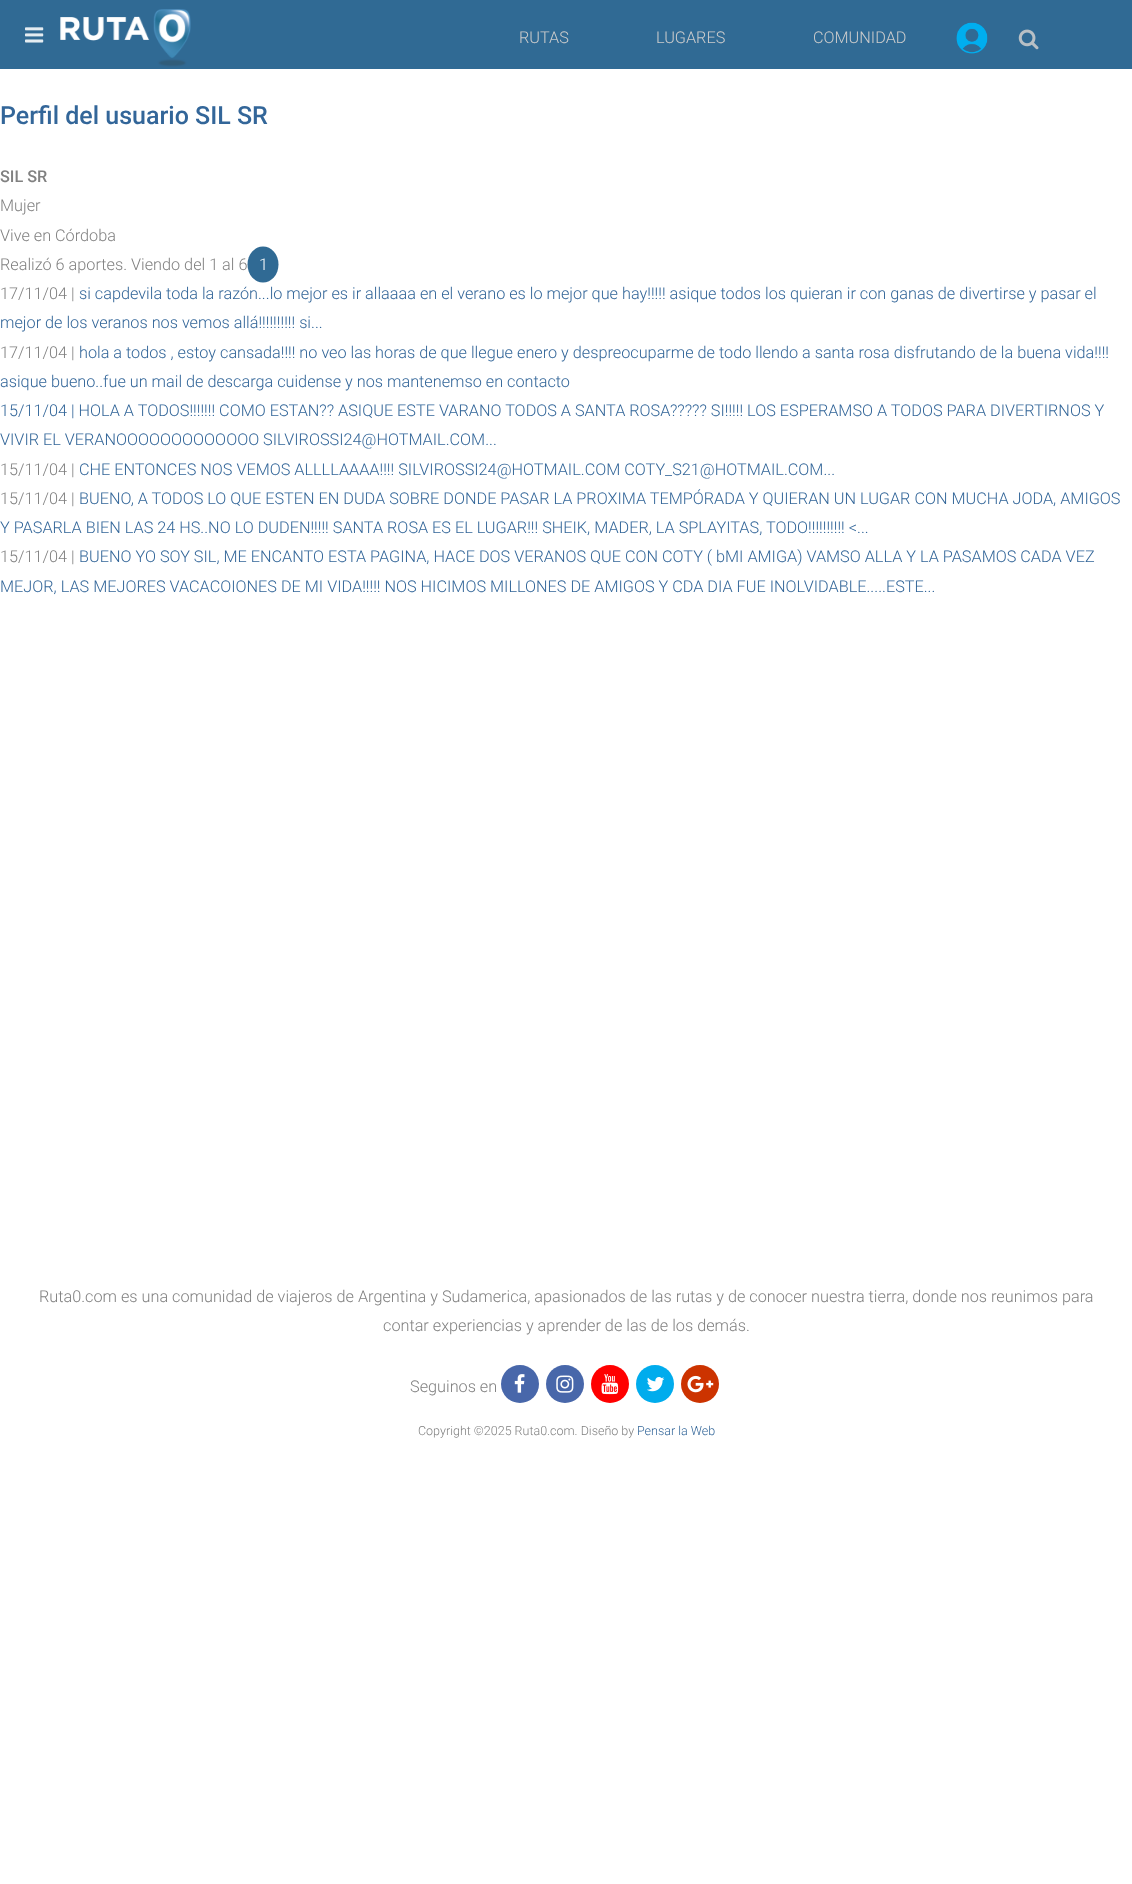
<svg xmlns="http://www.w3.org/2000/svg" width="1132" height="1884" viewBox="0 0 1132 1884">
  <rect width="100%" height="100%" fill="rgb(255,255,255)"/>
  <rect x="0" y="0" width="1132" height="69" fill="rgb(48,106,148)"/>
  <image x="25" y="27" width="19" height="16" href="pic1.png"/>
  <image x="60" y="9" width="131" height="58" href="pic2.png"/>
  <g font-family="Roboto" font-size="16.25" font-weight="300" fill="rgb(204,204,204)">
    <text x="519" y="43">RUTAS</text>
    <text x="656" y="43">LUGARES</text>
    <text x="813" y="43">COMUNIDAD</text>
  </g>
  <image x="956" y="22" width="32" height="32" href="pic3.png"/>
  <image x="1018" y="29" width="21" height="21" href="pic4.png"/>
  <text x="0" y="124" font-family="Roboto" font-size="25" font-weight="500" fill="rgb(51,102,153)">Perfil del usuario SIL SR</text>
  <text x="0" y="182" font-family="Roboto" font-size="16.25" font-weight="500" fill="rgb(129,129,129)">SIL SR</text>
  <g font-family="Roboto" font-size="16.25" font-weight="300" fill="rgb(129,129,129)">
    <text>
      <tspan x="0" y="211">Mujer</tspan>
      <tspan x="0" y="241">Vive en Córdoba</tspan>
      <tspan x="0" y="270">Realizó 6 aportes. Viendo del 1 al 6</tspan>
    </text>
  </g>
  <ellipse cx="263" cy="264.5" rx="15.5" ry="18" fill="rgb(48,106,148)"/>
  <text x="259" y="270" font-family="Roboto" font-size="16.25" font-weight="300" fill="rgb(255,255,255)">1</text>
  <text x="0" y="299" font-family="Roboto" font-size="16.25" font-weight="300" fill="rgb(129,129,129)">17/11/04 |</text>
  <g font-family="Roboto" font-size="16.25" font-weight="300" fill="rgb(51,102,153)">
    <text x="79" y="299">si capdevila toda la razón...lo mejor es ir allaaaa en el verano es lo mejor que hay!!!!! asique todos los quieran ir con ganas de divertirse y pasar el</text>
    <text x="0" y="328">mejor de los veranos nos vemos allá!!!!!!!!!! si...</text>
  </g>
  <text x="0" y="358" font-family="Roboto" font-size="16.25" font-weight="300" fill="rgb(129,129,129)">17/11/04 |</text>
  <g font-family="Roboto" font-size="16.25" font-weight="300" fill="rgb(51,102,153)">
    <text x="79" y="358">hola a todos , estoy cansada!!!! no veo las horas de que llegue enero y despreocuparme de todo llendo a santa rosa disfrutando de la buena vida!!!!</text>
    <text>
      <tspan x="0" y="387">asique bueno..fue un mail de descarga cuidense y nos mantenemso en contacto</tspan>
      <tspan x="0" y="416">15/11/04 | HOLA A TODOS!!!!!!! COMO ESTAN?? ASIQUE ESTE VARANO TODOS A SANTA ROSA????? SI!!!!! LOS ESPERAMSO A TODOS PARA DIVERTIRNOS Y</tspan>
      <tspan x="0" y="445">VIVIR EL VERANOOOOOOOOOOOOO SILVIROSSI24@HOTMAIL.COM...</tspan>
    </text>
  </g>
  <text x="0" y="475" font-family="Roboto" font-size="16.25" font-weight="300" fill="rgb(129,129,129)">15/11/04 |</text>
  <text x="79" y="475" font-family="Roboto" font-size="16.25" font-weight="300" fill="rgb(51,102,153)">CHE ENTONCES NOS VEMOS ALLLLAAAA!!!! SILVIROSSI24@HOTMAIL.COM COTY_S21@HOTMAIL.COM...</text>
  <text x="0" y="504" font-family="Roboto" font-size="16.25" font-weight="300" fill="rgb(129,129,129)">15/11/04 |</text>
  <g font-family="Roboto" font-size="16.25" font-weight="300" fill="rgb(51,102,153)">
    <text x="79" y="504">BUENO, A TODOS LO QUE ESTEN EN DUDA SOBRE DONDE PASAR LA PROXIMA TEMPÓRADA Y QUIERAN UN LUGAR CON MUCHA JODA, AMIGOS</text>
    <text x="0" y="533">Y PASARLA BIEN LAS 24 HS..NO LO DUDEN!!!!! SANTA ROSA ES EL LUGAR!!! SHEIK, MADER, LA SPLAYITAS, TODO!!!!!!!!!! &lt;...</text>
  </g>
  <text x="0" y="562" font-family="Roboto" font-size="16.25" font-weight="300" fill="rgb(129,129,129)">15/11/04 |</text>
  <g font-family="Roboto" font-size="16.25" font-weight="300" fill="rgb(51,102,153)">
    <text x="79" y="562">BUENO YO SOY SIL, ME ENCANTO ESTA PAGINA, HACE DOS VERANOS QUE CON COTY ( bMI AMIGA) VAMSO ALLA Y LA PASAMOS CADA VEZ</text>
    <text x="0" y="592">MEJOR, LAS MEJORES VACACOIONES DE MI VIDA!!!!! NOS HICIMOS MILLONES DE AMIGOS Y CDA DIA FUE INOLVIDABLE.....ESTE...</text>
  </g>
  <g font-family="Roboto" font-size="16.25" font-weight="300" fill="rgb(129,129,129)">
    <text x="39" y="1302">Ruta0.com es una comunidad de viajeros de Argentina y Sudamerica, apasionados de las rutas y de conocer nuestra tierra, donde nos reunimos para</text>
    <text x="383" y="1331">contar experiencias y aprender de las de los demás.</text>
    <text x="410" y="1392">Seguinos en</text>
  </g>
  <circle cx="520" cy="1384" r="19" fill="rgb(72,103,170)"/>
  <image x="514" y="1374" width="11" height="19" href="pic5.png"/>
  <circle cx="565" cy="1384" r="19" fill="rgb(72,103,170)"/>
  <image x="556" y="1375" width="18" height="18" href="pic6.png"/>
  <circle cx="610" cy="1384" r="19" fill="rgb(255,0,0)"/>
  <image x="601" y="1374" width="18" height="21" href="pic7.png"/>
  <circle cx="655" cy="1384" r="19" fill="rgb(0,172,237)"/>
  <image x="647" y="1377" width="18" height="15" href="pic8.png"/>
  <circle cx="700" cy="1384" r="19" fill="rgb(204,51,0)"/>
  <image x="687" y="1375" width="27" height="18" href="pic9.png"/>
  <text x="418" y="1435" font-family="Roboto" font-size="12.5" font-weight="300" fill="rgb(129,129,129)">Copyright ©2025 Ruta0.com. Diseño by</text>
  <text x="637" y="1435" font-family="Roboto" font-size="12.5" font-weight="300" fill="rgb(51,102,153)">Pensar la Web</text>
</svg>
